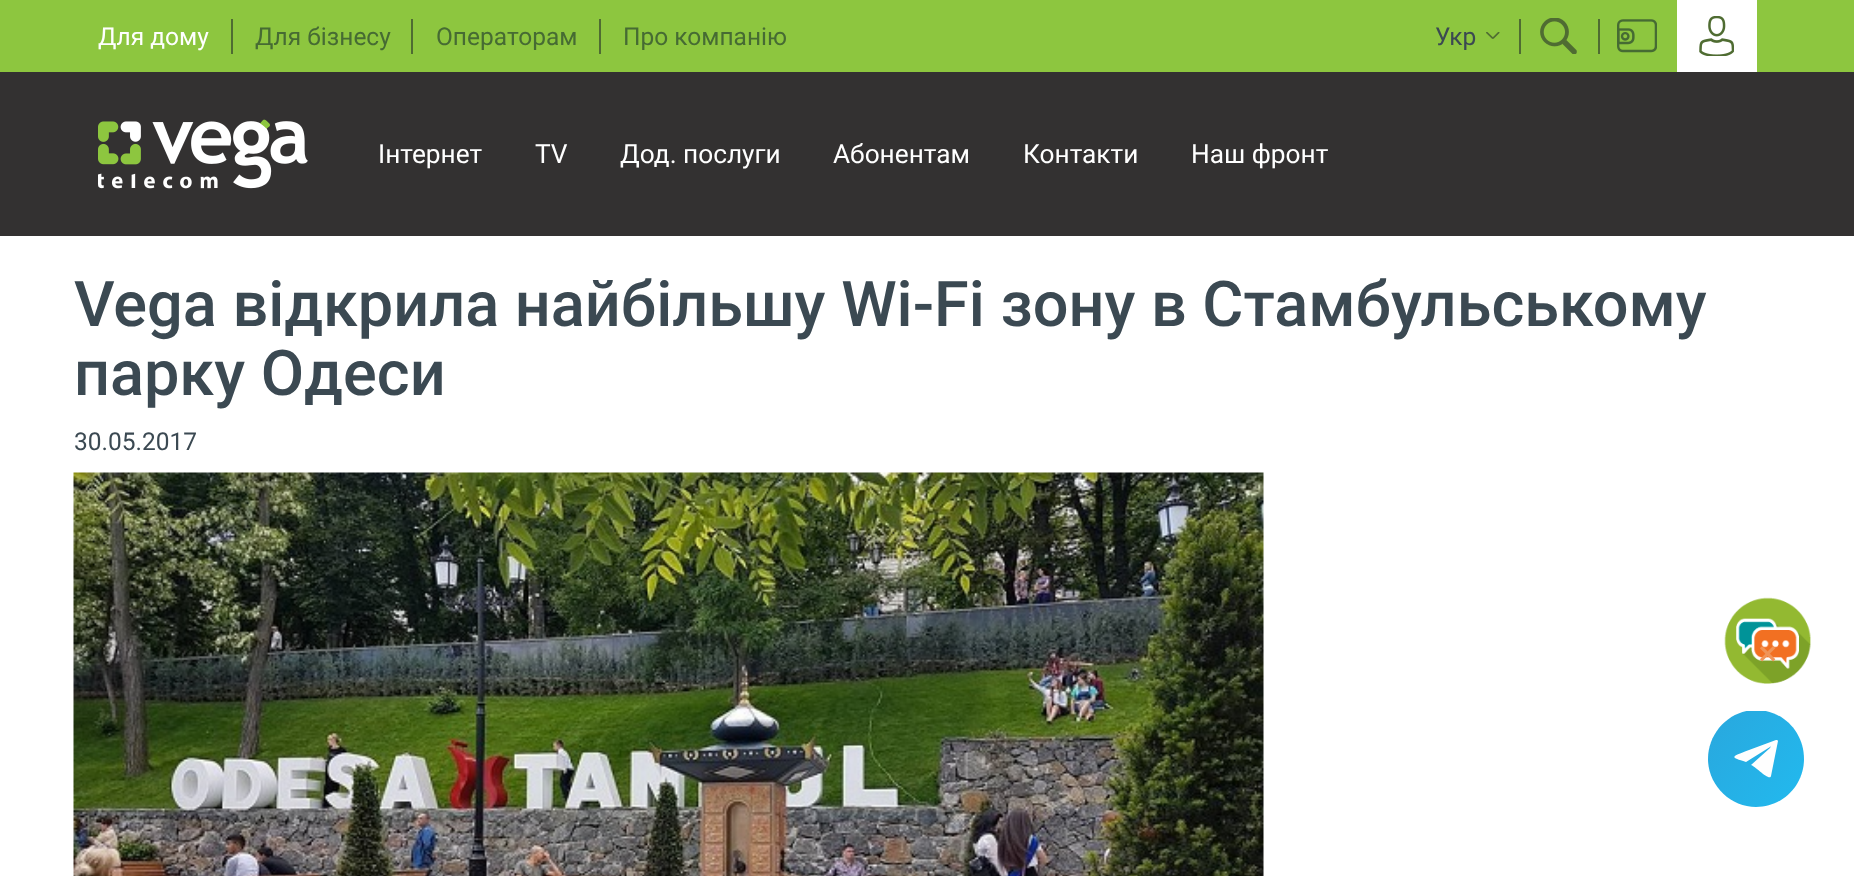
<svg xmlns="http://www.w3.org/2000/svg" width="1854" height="876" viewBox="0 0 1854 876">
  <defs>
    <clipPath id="clip1"><rect x="1708" y="711" width="96" height="96"/></clipPath>
    <linearGradient id="g1" gradientUnits="userSpaceOnUse" x1="1721" y1="726" x2="1797" y2="784"><stop offset="0" stop-color="rgb(40,170,224)"/><stop offset="1" stop-color="rgb(35,183,236)"/></linearGradient>
  </defs>
  <rect width="100%" height="100%" fill="rgb(255,255,255)"/>
  <rect x="0" y="0" width="1854" height="72" fill="rgb(141,198,63)"/>
  <text x="98" y="45" font-family="Roboto" font-size="24.5" fill="rgb(255,255,255)">Для дому</text>
  <rect x="231" y="19" width="2" height="35" fill="rgb(79,108,50)"/>
  <text x="255" y="45" font-family="Roboto" font-size="24.5" fill="rgb(70,107,51)">Для бізнесу</text>
  <rect x="411" y="19" width="2" height="35" fill="rgb(79,108,50)"/>
  <text x="436" y="45" font-family="Roboto" font-size="24.5" fill="rgb(70,107,51)">Операторам</text>
  <rect x="599" y="19" width="2" height="35" fill="rgb(79,108,50)"/>
  <text x="623" y="45" font-family="Roboto" font-size="24.5" fill="rgb(70,107,51)">Про компанію</text>
  <text x="1435" y="45" font-family="Roboto" font-size="24.5" fill="rgb(59,73,82)">Укр</text>
  <image x="1486" y="32" width="14" height="7" href="pic1.png"/>
  <rect x="1519" y="19" width="2" height="35" fill="rgb(79,108,50)"/>
  <image x="1540" y="18" width="37" height="36" href="pic2.png"/>
  <rect x="1598" y="19" width="2" height="35" fill="rgb(79,108,50)"/>
  <image x="1617" y="19" width="40" height="34" href="pic3.png"/>
  <rect x="1677" y="0" width="80" height="72" fill="rgb(255,255,255)"/>
  <image x="1699" y="16" width="35" height="40" href="pic4.png"/>
  <rect x="0" y="72" width="1854" height="164" fill="rgb(51,49,49)"/>
  <image x="98" y="119" width="210" height="70" href="pic5.png"/>
  <g font-family="Roboto" font-size="26.25" fill="rgb(255,255,255)">
    <text x="378" y="163">Інтернет</text>
    <text x="535" y="163">TV</text>
    <text x="620" y="163">Дод. послуги</text>
    <text x="833" y="163">Абонентам</text>
    <text x="1023" y="163">Контакти</text>
    <text x="1191" y="163">Наш фронт</text>
  </g>
  <g font-family="Roboto" font-size="63" font-weight="500" fill="rgb(59,73,82)">
    <text>
      <tspan x="74" y="326">Vega відкрила найбільшу Wi-Fi зону в Стамбульському</tspan>
      <tspan x="74" y="395">парку Одеси</tspan>
    </text>
  </g>
  <text x="74" y="450" font-family="Roboto" font-size="24.5" fill="rgb(59,73,82)">30.05.2017</text>
  <image x="73" y="472" width="1191" height="404" href="pic6.png"/>
  <image x="1724" y="597" width="87" height="87" href="pic7.png"/>
  <text x="1757" y="663" font-family="DejaVu Sans" font-size="24.5" font-weight="bold" fill="rgb(240,148,87)">✕</text>
  <g clip-path="url(#clip1)">
    <path d="M1756 710C1783 710 1804 732 1804 759C1804 785 1783 807 1756 807C1730 807 1708 785 1708 759C1708 732 1730 710 1756 710Z" fill="url(#g1)" fill-rule="evenodd"/>
  </g>
  <path d="M1778 741L1771 776C1770 782 1755 766 1751 765L1770 748L1771 746L1770 747L1746 762C1729 757 1731 757 1749 750L1776 740C1777 740 1778 740 1778 741Z" fill="rgb(254,254,254)"/>
</svg>
